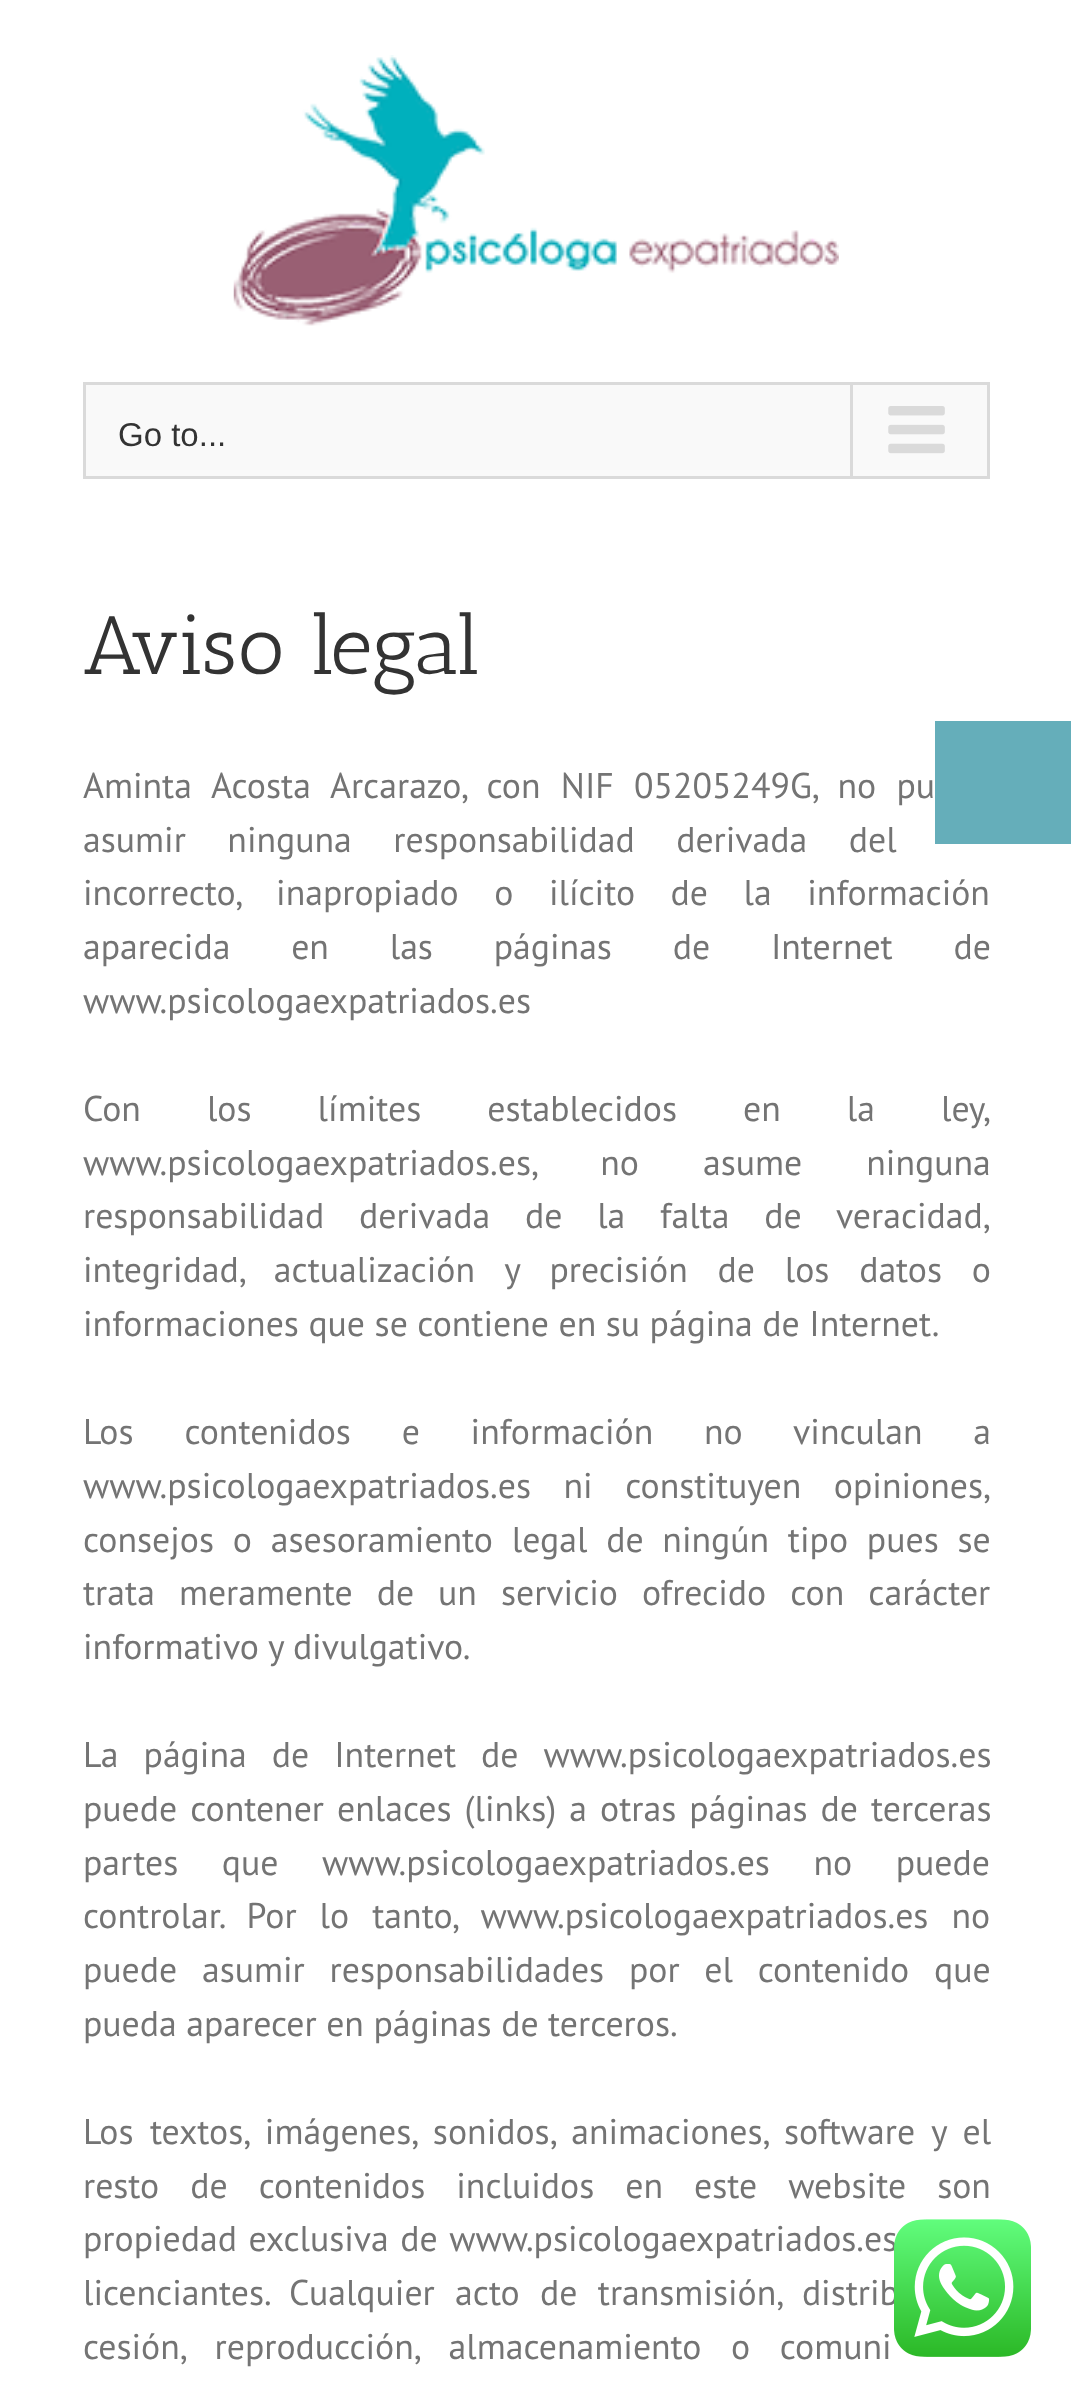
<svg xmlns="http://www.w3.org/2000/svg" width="1071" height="2396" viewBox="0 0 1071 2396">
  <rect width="100%" height="100%" fill="rgb(255,255,255)"/>
  <image x="233" y="55" width="606" height="271" href="pic1.png"/>
  <rect x="84.5" y="383.5" width="904" height="94" fill="rgb(249,249,249)" stroke="rgb(218,218,218)" stroke-width="3"/>
  <text x="118" y="446" font-family="Liberation Sans" font-size="33" fill="rgb(51,51,51)">Go to...</text>
  <rect x="850" y="385" width="3" height="91" fill="rgb(218,218,218)"/>
  <image x="888" y="406" width="57" height="48" href="pic2.png"/>
  <text x="83" y="674" font-family="Antic Slab" font-size="82.5" fill="rgb(51,51,51)">Aviso legal</text>
  <g font-family="PT Sans" font-size="35.75" fill="rgb(116,116,116)">
    <text>
      <tspan x="83" y="798" word-spacing="10.75">Aminta Acosta Arcarazo, con NIF 05205249G, no pu</tspan>
      <tspan x="83" y="852" word-spacing="32">asumir ninguna responsabilidad derivada del</tspan>
      <tspan x="83" y="905" word-spacing="26">incorrecto, inapropiado o ilícito de la información</tspan>
      <tspan x="83" y="959" word-spacing="51.25">aparecida en las páginas de Internet de</tspan>
      <tspan x="83" y="1013">www.psicologaexpatriados.es</tspan>
    </text>
    <text>
      <tspan x="83" y="1121" word-spacing="56.5">Con los límites establecidos en la ley,</tspan>
      <tspan x="83" y="1175" word-spacing="54.5">www.psicologaexpatriados.es, no asume ninguna</tspan>
      <tspan x="83" y="1228" word-spacing="25.25">responsabilidad derivada de la falta de veracidad,</tspan>
      <tspan x="83" y="1282" word-spacing="20.25">integridad, actualización y precisión de los datos o</tspan>
      <tspan x="83" y="1336">informaciones que se contiene en su página de Internet.</tspan>
    </text>
    <text>
      <tspan x="83" y="1444" word-spacing="41.25">Los contenidos e información no vinculan a</tspan>
      <tspan x="83" y="1498" word-spacing="23">www.psicologaexpatriados.es ni constituyen opiniones,</tspan>
      <tspan x="83" y="1552" word-spacing="9.25">consejos o asesoramiento legal de ningún tipo pues se</tspan>
      <tspan x="83" y="1605" word-spacing="14.5">trata meramente de un servicio ofrecido con carácter</tspan>
      <tspan x="83" y="1659">informativo y divulgativo.</tspan>
    </text>
    <text>
      <tspan x="83" y="1767" word-spacing="15.5">La página de Internet de www.psicologaexpatriados.es</tspan>
      <tspan x="83" y="1821" word-spacing="3.5">puede contener enlaces (links) a otras páginas de terceras</tspan>
      <tspan x="83" y="1875" word-spacing="34">partes que www.psicologaexpatriados.es no puede</tspan>
      <tspan x="83" y="1928" word-spacing="13.5">controlar. Por lo tanto, www.psicologaexpatriados.es no</tspan>
      <tspan x="83" y="1982" word-spacing="15.25">puede asumir responsabilidades por el contenido que</tspan>
      <tspan x="83" y="2036">pueda aparecer en páginas de terceros.</tspan>
    </text>
    <text>
      <tspan x="83" y="2144" word-spacing="6.75">Los textos, imágenes, sonidos, animaciones, software y el</tspan>
      <tspan x="83" y="2198" word-spacing="21.5">resto de contenidos incluidos en este website son</tspan>
      <tspan x="83" y="2251" word-spacing="2">propiedad exclusiva de www.psicologaexpatriados.es</tspan>
      <tspan x="83" y="2305" word-spacing="10.75">licenciantes. Cualquier acto de transmisión, distrib</tspan>
      <tspan x="83" y="2359" word-spacing="20">cesión, reproducción, almacenamiento o comuni</tspan>
    </text>
  </g>
  <rect x="935" y="721" width="136" height="123" fill="rgb(101,174,186)"/>
  <image x="894" y="2219" width="137" height="138" href="pic3.png"/>
</svg>
